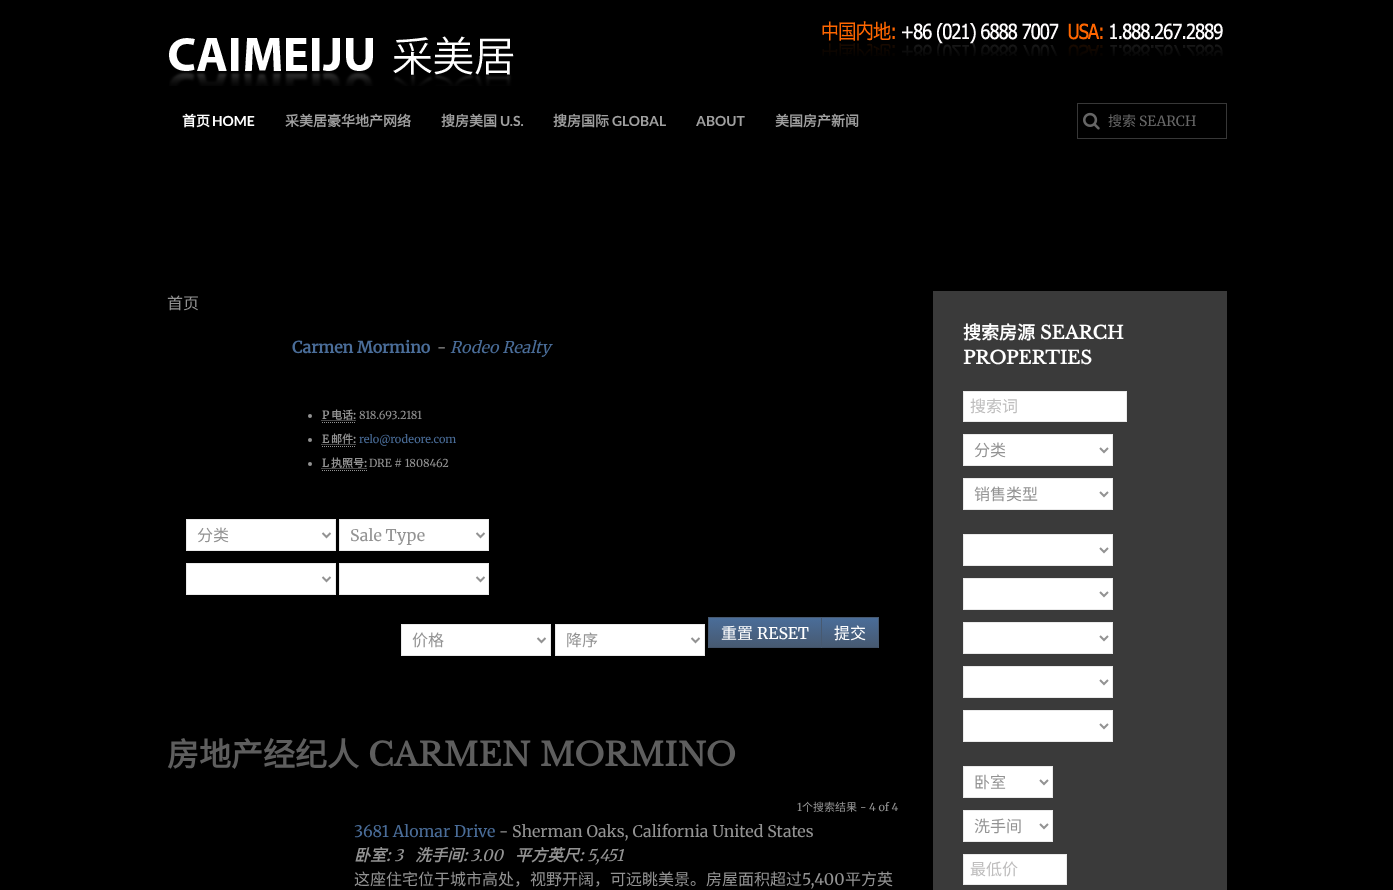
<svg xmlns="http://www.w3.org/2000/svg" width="1393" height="890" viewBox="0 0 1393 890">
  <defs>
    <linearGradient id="g1" gradientUnits="userSpaceOnUse" x1="765" y1="618" x2="765" y2="648"><stop offset="0" stop-color="rgb(74,109,153)"/><stop offset="1" stop-color="rgb(71,89,112)"/></linearGradient>
    <linearGradient id="g2" gradientUnits="userSpaceOnUse" x1="850" y1="618" x2="850" y2="648"><stop offset="0" stop-color="rgb(74,109,153)"/><stop offset="1" stop-color="rgb(71,89,112)"/></linearGradient>
  </defs>
  <rect width="100%" height="100%" fill="rgb(0,0,0)"/>
  <image x="169" y="36" width="345" height="50" href="pic1.png"/>
  <image x="822" y="21" width="401" height="35" href="pic2.png"/>
  <text x="182" y="126" font-family="Noto Sans CJK SC" font-size="14" font-weight="bold" fill="rgb(255,255,255)">首页</text>
  <text x="212" y="126" font-family="Lato" font-size="14" font-weight="bold" fill="rgb(255,255,255)">HOME</text>
  <g font-family="Noto Sans CJK SC" font-size="14" font-weight="bold" fill="rgb(160,160,160)">
    <text x="285" y="126">采美居豪华地产网络</text>
    <text x="441" y="126">搜房美国</text>
  </g>
  <text x="500" y="126" font-family="Lato" font-size="14" font-weight="bold" fill="rgb(160,160,160)">U.S.</text>
  <text x="553" y="126" font-family="Noto Sans CJK SC" font-size="14" font-weight="bold" fill="rgb(160,160,160)">搜房国际</text>
  <g font-family="Lato" font-size="14" font-weight="bold" fill="rgb(160,160,160)">
    <text x="612" y="126">GLOBAL</text>
    <text x="696" y="126">ABOUT</text>
  </g>
  <text x="775" y="126" font-family="Noto Sans CJK SC" font-size="14" font-weight="bold" fill="rgb(160,160,160)">美国房产新闻</text>
  <rect x="1077.5" y="103.5" width="149" height="35" fill="none" stroke="rgb(55,55,55)"/>
  <image x="1083" y="112" width="17" height="18" href="pic3.png"/>
  <text x="1108" y="126" font-family="Noto Sans CJK SC" font-size="14" fill="rgb(102,102,102)">搜索</text>
  <text x="1139" y="126" font-family="Merriweather" font-size="14" font-weight="300" fill="rgb(102,102,102)">SEARCH</text>
  <text x="167" y="309" font-family="Noto Sans CJK SC" font-size="16" fill="rgb(147,147,147)">首页</text>
  <text x="292" y="353" font-family="Merriweather" font-size="16" font-weight="bold" fill="rgb(74,109,153)">Carmen Mormino</text>
  <text x="437" y="353" font-family="Merriweather" font-size="16" font-weight="300" fill="rgb(147,147,147)">-</text>
  <text x="450" y="353" font-family="Merriweather" font-size="16" font-weight="300" font-style="italic" fill="rgb(74,109,153)">Rodeo Realty</text>
  <circle cx="310" cy="416" r="2" fill="rgb(147,147,147)"/>
  <text x="322" y="419" font-family="Merriweather" font-size="11" font-weight="bold" fill="rgb(147,147,147)">P</text>
  <text x="331" y="419" font-family="Noto Sans CJK SC" font-size="11" font-weight="bold" fill="rgb(147,147,147)">电话</text>
  <text x="353" y="419" font-family="Merriweather" font-size="11" font-weight="bold" fill="rgb(147,147,147)">:</text>
  <path d="M322 422.5H356M321.5 420.5H356" fill="none" stroke="rgb(147,147,147)" stroke-dasharray="1 1"/>
  <text x="359" y="419" font-family="Merriweather" font-size="11" font-weight="300" fill="rgb(147,147,147)">818.693.2181</text>
  <circle cx="310" cy="440" r="2" fill="rgb(147,147,147)"/>
  <text x="322" y="443" font-family="Merriweather" font-size="11" font-weight="bold" fill="rgb(147,147,147)">E</text>
  <text x="331" y="443" font-family="Noto Sans CJK SC" font-size="11" font-weight="bold" fill="rgb(147,147,147)">邮件</text>
  <text x="353" y="443" font-family="Merriweather" font-size="11" font-weight="bold" fill="rgb(147,147,147)">:</text>
  <path d="M322 446.5H356M321.5 444.5H356" fill="none" stroke="rgb(147,147,147)" stroke-dasharray="1 1"/>
  <text x="359" y="443" font-family="Merriweather" font-size="11" font-weight="300" fill="rgb(74,109,153)">relo@rodeore.com</text>
  <circle cx="310" cy="464" r="2" fill="rgb(147,147,147)"/>
  <text x="322" y="467" font-family="Merriweather" font-size="11" font-weight="bold" fill="rgb(147,147,147)">L</text>
  <text x="331" y="467" font-family="Noto Sans CJK SC" font-size="11" font-weight="bold" fill="rgb(147,147,147)">执照号</text>
  <text x="364" y="467" font-family="Merriweather" font-size="11" font-weight="bold" fill="rgb(147,147,147)">:</text>
  <path d="M322 470.5H367M321.5 468.5H367" fill="none" stroke="rgb(147,147,147)" stroke-dasharray="1 1"/>
  <text x="369" y="467" font-family="Merriweather" font-size="11" font-weight="300" fill="rgb(147,147,147)">DRE # 1808462</text>
  <rect x="186.5" y="519.5" width="149" height="31" fill="rgb(255,255,255)" stroke="rgb(234,234,234)"/>
  <path d="M322.5 533L326.5 537L330.5 533" fill="none" stroke="rgb(147,147,147)" stroke-width="2"/>
  <text x="197" y="541" font-family="Noto Sans CJK SC" font-size="16" fill="rgb(147,147,147)">分类</text>
  <rect x="339.5" y="519.5" width="149" height="31" fill="rgb(255,255,255)" stroke="rgb(234,234,234)"/>
  <path d="M476.5 533L480.5 537L484.5 533" fill="none" stroke="rgb(147,147,147)" stroke-width="2"/>
  <text x="350" y="541" font-family="Merriweather" font-size="16" font-weight="300" fill="rgb(147,147,147)">Sale Type</text>
  <rect x="186.5" y="563.5" width="149" height="31" fill="rgb(255,255,255)" stroke="rgb(234,234,234)"/>
  <path d="M322.5 577L326.5 581L330.5 577" fill="none" stroke="rgb(147,147,147)" stroke-width="2"/>
  <rect x="339.5" y="563.5" width="149" height="31" fill="rgb(255,255,255)" stroke="rgb(234,234,234)"/>
  <path d="M476.5 577L480.5 581L484.5 577" fill="none" stroke="rgb(147,147,147)" stroke-width="2"/>
  <rect x="401.5" y="624.5" width="149" height="31" fill="rgb(255,255,255)" stroke="rgb(234,234,234)"/>
  <path d="M537.5 638L541.5 642L545.5 638" fill="none" stroke="rgb(147,147,147)" stroke-width="2"/>
  <text x="412" y="646" font-family="Noto Sans CJK SC" font-size="16" fill="rgb(147,147,147)">价格</text>
  <rect x="555.5" y="624.5" width="149" height="31" fill="rgb(255,255,255)" stroke="rgb(234,234,234)"/>
  <path d="M691.5 638L695.5 642L699.5 638" fill="none" stroke="rgb(147,147,147)" stroke-width="2"/>
  <text x="566" y="646" font-family="Noto Sans CJK SC" font-size="16" fill="rgb(147,147,147)">降序</text>
  <rect x="709" y="618" width="112" height="29" fill="url(#g1)"/>
  <rect x="709" y="647" width="112" height="1" fill="rgb(65,81,103)"/>
  <rect x="708" y="617" width="114" height="1" fill="rgb(71,89,112)"/>
  <rect x="821" y="617" width="1" height="31" fill="rgb(71,89,112)"/>
  <rect x="708" y="617" width="1" height="31" fill="rgb(71,89,112)"/>
  <text x="721" y="639" font-family="Noto Sans CJK SC" font-size="16" fill="rgb(255,255,255)">重置</text>
  <text x="757" y="639" font-family="Merriweather" font-size="16" font-weight="300" fill="rgb(255,255,255)">RESET</text>
  <rect x="822" y="618" width="56" height="29" fill="url(#g2)"/>
  <rect x="822" y="647" width="56" height="1" fill="rgb(65,81,103)"/>
  <rect x="821" y="617" width="58" height="1" fill="rgb(71,89,112)"/>
  <rect x="878" y="617" width="1" height="31" fill="rgb(71,89,112)"/>
  <text x="834" y="639" font-family="Noto Sans CJK SC" font-size="16" fill="rgb(255,255,255)">提交</text>
  <text x="167" y="766" font-family="Noto Sans CJK SC" font-size="32" font-weight="bold" fill="rgb(94,94,94)">房地产经纪人</text>
  <text x="368" y="766" font-family="Libre Baskerville" font-size="32" font-weight="bold" fill="rgb(94,94,94)">CARMEN MORMINO</text>
  <text x="797" y="811" font-family="Merriweather" font-size="11" font-weight="300" fill="rgb(147,147,147)">1</text>
  <text x="802" y="811" font-family="Noto Sans CJK SC" font-size="11" fill="rgb(147,147,147)">个搜索结果</text>
  <text x="860" y="811" font-family="Merriweather" font-size="11" font-weight="300" fill="rgb(147,147,147)">- 4 of 4</text>
  <text x="354" y="837" font-family="Merriweather" font-size="16" font-weight="300" fill="rgb(74,109,153)">3681 Alomar Drive</text>
  <text x="499" y="837" font-family="Merriweather" font-size="16" font-weight="300" fill="rgb(147,147,147)">- Sherman Oaks, California United States</text>
  <text x="354" y="861" font-family="Noto Sans CJK SC" font-size="16" font-weight="bold" font-style="italic" fill="rgb(147,147,147)">卧室</text>
  <text x="386" y="861" font-family="Merriweather" font-size="16" font-weight="bold" font-style="italic" fill="rgb(147,147,147)">:</text>
  <text x="394" y="861" font-family="Merriweather" font-size="16" font-weight="300" font-style="italic" fill="rgb(147,147,147)">3</text>
  <text x="415" y="861" font-family="Noto Sans CJK SC" font-size="16" font-weight="bold" font-style="italic" fill="rgb(147,147,147)">洗手间</text>
  <text x="463" y="861" font-family="Merriweather" font-size="16" font-weight="bold" font-style="italic" fill="rgb(147,147,147)">:</text>
  <text x="470" y="861" font-family="Merriweather" font-size="16" font-weight="300" font-style="italic" fill="rgb(147,147,147)">3.00</text>
  <text x="515" y="861" font-family="Noto Sans CJK SC" font-size="16" font-weight="bold" font-style="italic" fill="rgb(147,147,147)">平方英尺</text>
  <text x="579" y="861" font-family="Merriweather" font-size="16" font-weight="bold" font-style="italic" fill="rgb(147,147,147)">:</text>
  <text x="587" y="861" font-family="Merriweather" font-size="16" font-weight="300" font-style="italic" fill="rgb(147,147,147)">5,451</text>
  <text x="354" y="885" font-family="Noto Sans CJK SC" font-size="16" fill="rgb(147,147,147)">这座住宅位于城市高处，视野开阔，可远眺美景。房屋面积超过</text>
  <text x="802" y="885" font-family="Merriweather" font-size="16" font-weight="300" fill="rgb(147,147,147)">5,400</text>
  <text x="845" y="885" font-family="Noto Sans CJK SC" font-size="16" fill="rgb(147,147,147)">平方英</text>
  <rect x="933" y="291" width="294" height="599" fill="rgb(58,58,58)"/>
  <text x="963" y="339" font-family="Noto Sans CJK SC" font-size="18" font-weight="bold" fill="rgb(255,255,255)">搜索房源</text>
  <g font-family="Libre Baskerville" font-size="18" font-weight="bold" fill="rgb(255,255,255)">
    <text x="1040" y="339">SEARCH</text>
    <text x="963" y="364">PROPERTIES</text>
  </g>
  <rect x="963.5" y="391.5" width="163" height="30" fill="rgb(255,255,255)" stroke="rgb(234,234,234)"/>
  <text x="970" y="412" font-family="Noto Sans CJK SC" font-size="16" fill="rgb(190,189,189)">搜索词</text>
  <rect x="963.5" y="434.5" width="149" height="31" fill="rgb(255,255,255)" stroke="rgb(234,234,234)"/>
  <path d="M1100 448L1104 452L1108 448" fill="none" stroke="rgb(147,147,147)" stroke-width="2"/>
  <text x="974" y="456" font-family="Noto Sans CJK SC" font-size="16" fill="rgb(147,147,147)">分类</text>
  <rect x="963.5" y="478.5" width="149" height="31" fill="rgb(255,255,255)" stroke="rgb(234,234,234)"/>
  <path d="M1100 492L1104 496L1108 492" fill="none" stroke="rgb(147,147,147)" stroke-width="2"/>
  <text x="974" y="500" font-family="Noto Sans CJK SC" font-size="16" fill="rgb(147,147,147)">销售类型</text>
  <rect x="963.5" y="534.5" width="149" height="31" fill="rgb(255,255,255)" stroke="rgb(234,234,234)"/>
  <path d="M1100 548L1104 552L1108 548" fill="none" stroke="rgb(147,147,147)" stroke-width="2"/>
  <rect x="963.5" y="578.5" width="149" height="31" fill="rgb(255,255,255)" stroke="rgb(234,234,234)"/>
  <path d="M1100 592L1104 596L1108 592" fill="none" stroke="rgb(147,147,147)" stroke-width="2"/>
  <rect x="963.5" y="622.5" width="149" height="31" fill="rgb(255,255,255)" stroke="rgb(234,234,234)"/>
  <path d="M1100 636L1104 640L1108 636" fill="none" stroke="rgb(147,147,147)" stroke-width="2"/>
  <rect x="963.5" y="666.5" width="149" height="31" fill="rgb(255,255,255)" stroke="rgb(234,234,234)"/>
  <path d="M1100 680L1104 684L1108 680" fill="none" stroke="rgb(147,147,147)" stroke-width="2"/>
  <rect x="963.5" y="710.5" width="149" height="31" fill="rgb(255,255,255)" stroke="rgb(234,234,234)"/>
  <path d="M1100 724L1104 728L1108 724" fill="none" stroke="rgb(147,147,147)" stroke-width="2"/>
  <rect x="963.5" y="766.5" width="89" height="31" fill="rgb(255,255,255)" stroke="rgb(234,234,234)"/>
  <path d="M1040 780L1044 784L1048 780" fill="none" stroke="rgb(147,147,147)" stroke-width="2"/>
  <text x="974" y="788" font-family="Noto Sans CJK SC" font-size="16" fill="rgb(147,147,147)">卧室</text>
  <rect x="963.5" y="810.5" width="89" height="31" fill="rgb(255,255,255)" stroke="rgb(234,234,234)"/>
  <path d="M1040 824L1044 828L1048 824" fill="none" stroke="rgb(147,147,147)" stroke-width="2"/>
  <text x="974" y="832" font-family="Noto Sans CJK SC" font-size="16" fill="rgb(147,147,147)">洗手间</text>
  <rect x="963.5" y="854.5" width="103" height="30" fill="rgb(255,255,255)" stroke="rgb(234,234,234)"/>
  <text x="970" y="875" font-family="Noto Sans CJK SC" font-size="16" fill="rgb(190,189,189)">最低价</text>
</svg>
